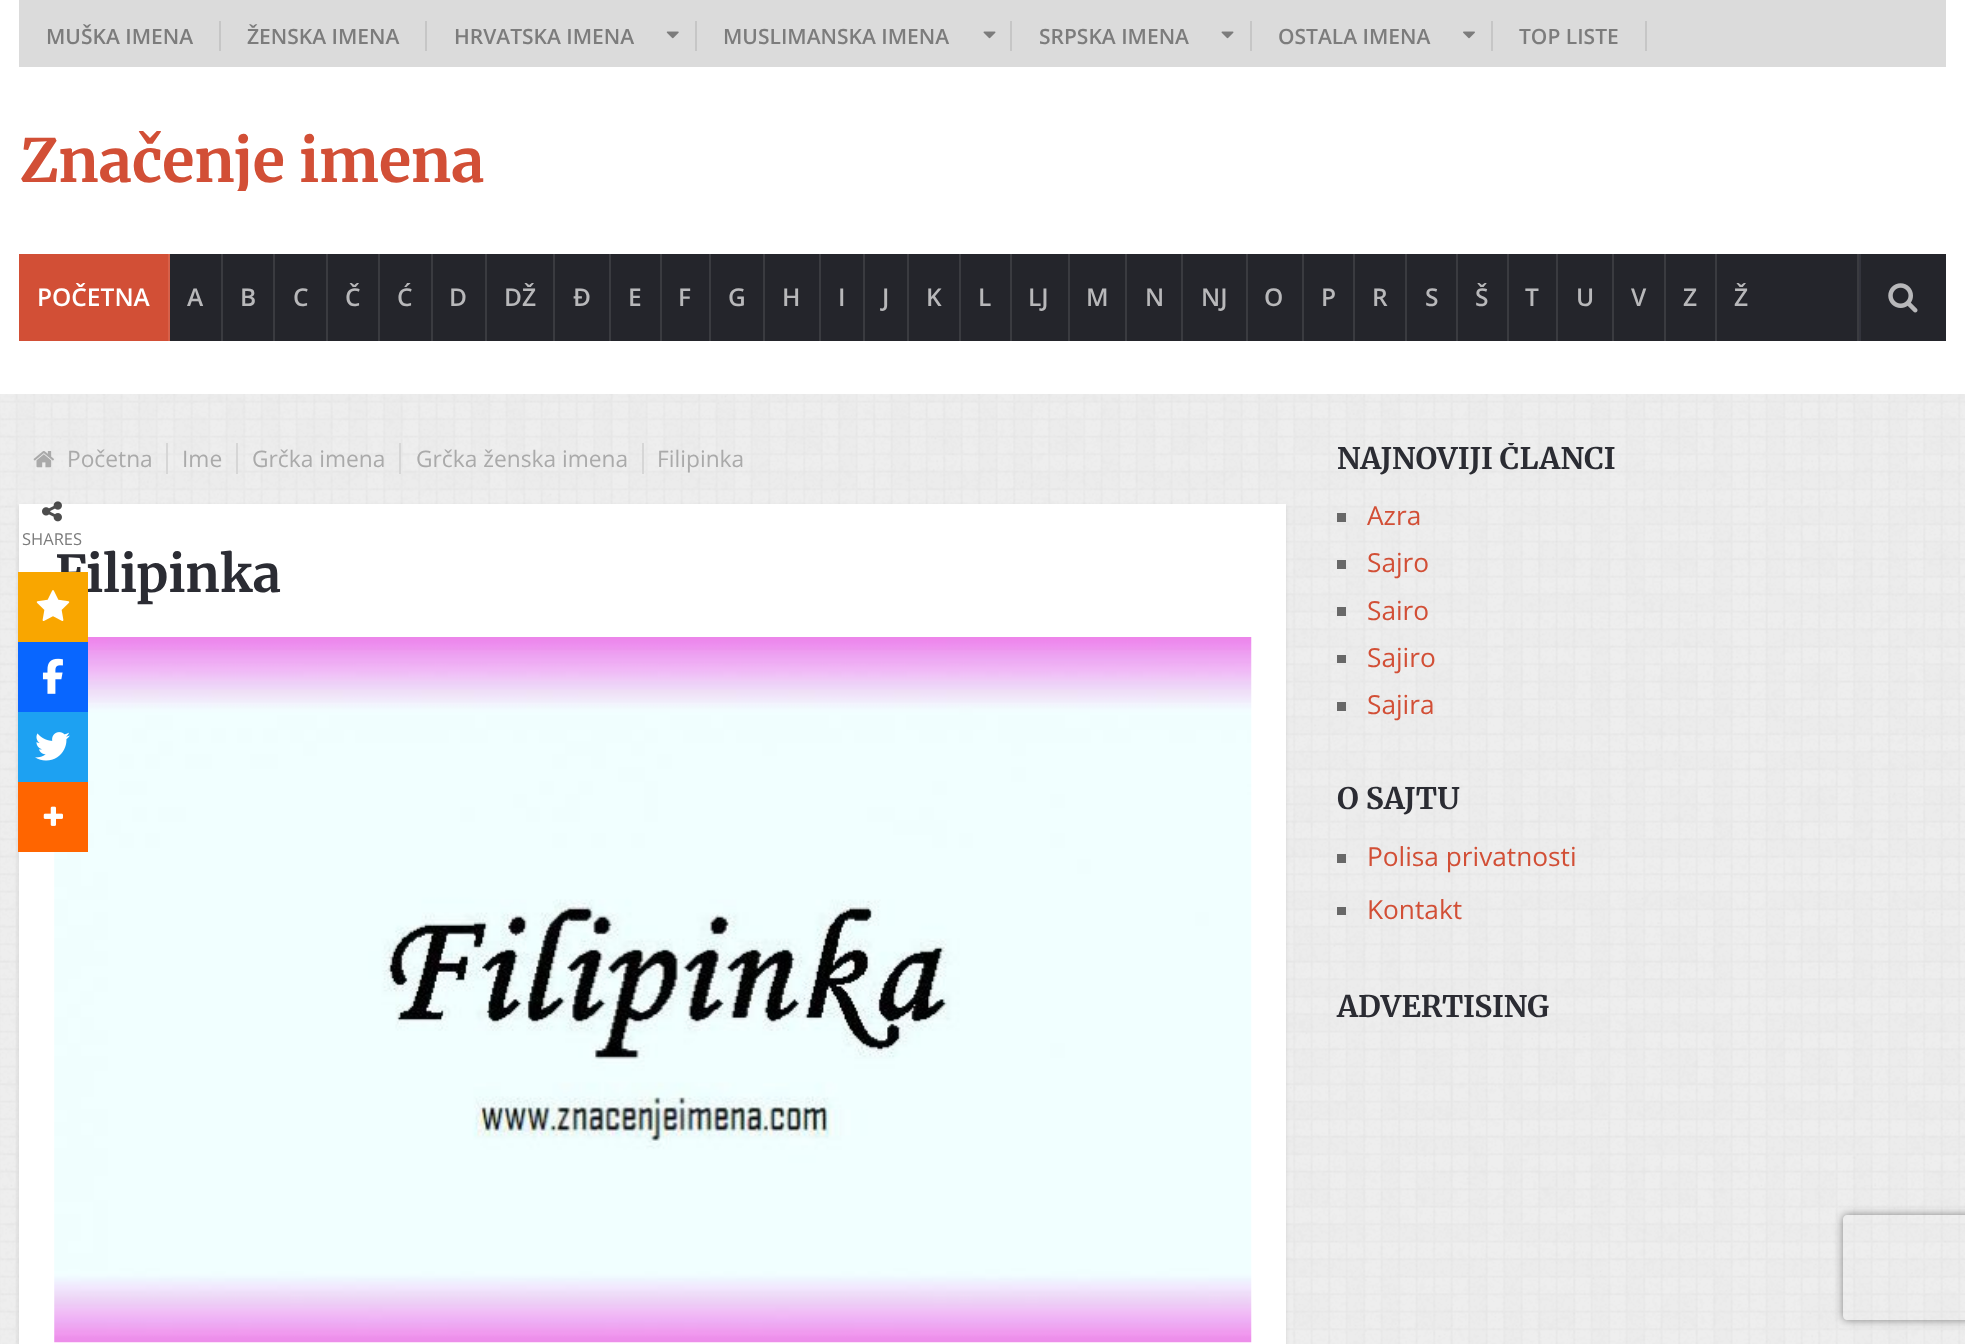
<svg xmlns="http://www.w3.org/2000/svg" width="1965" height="1344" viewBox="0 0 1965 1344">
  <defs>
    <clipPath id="clip1"><rect x="19" y="131" width="466" height="60"/></clipPath>
    <clipPath id="clip2"><rect x="1337" y="443" width="609" height="290"/></clipPath>
    <clipPath id="clip3"><path d="M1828 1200H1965V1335H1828ZM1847 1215H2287C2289 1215 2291 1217 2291 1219V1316C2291 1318 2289 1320 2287 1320H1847C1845 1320 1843 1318 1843 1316V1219C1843 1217 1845 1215 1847 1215Z" clip-rule="evenodd"/></clipPath>
  </defs>
  <rect width="100%" height="100%" fill="rgb(238,238,238)"/>
  <image x="0" y="394" width="1965" height="950" href="pic1.png"/>
  <rect x="0" y="0" width="1965" height="394" fill="rgb(255,255,255)"/>
  <rect x="19" y="0" width="1927" height="67" fill="rgb(219,219,219)"/>
  <rect x="219" y="21" width="2" height="30" fill="rgb(198,198,198)"/>
  <text x="46" y="44" font-family="Open Sans" font-size="21" font-weight="600" fill="rgb(124,124,124)">MUŠKA IMENA</text>
  <rect x="425" y="21" width="2" height="30" fill="rgb(198,198,198)"/>
  <text x="247" y="44" font-family="Open Sans" font-size="21" font-weight="600" fill="rgb(124,124,124)">ŽENSKA IMENA</text>
  <rect x="695" y="21" width="2" height="30" fill="rgb(198,198,198)"/>
  <text x="454" y="44" font-family="Open Sans" font-size="21" font-weight="600" fill="rgb(124,124,124)">HRVATSKA IMENA</text>
  <image x="666" y="31" width="13" height="8" href="pic2.png"/>
  <rect x="1010" y="21" width="2" height="30" fill="rgb(198,198,198)"/>
  <text x="723" y="44" font-family="Open Sans" font-size="21" font-weight="600" fill="rgb(124,124,124)">MUSLIMANSKA IMENA</text>
  <image x="983" y="31" width="13" height="8" href="pic3.png"/>
  <rect x="1250" y="21" width="2" height="30" fill="rgb(198,198,198)"/>
  <text x="1039" y="44" font-family="Open Sans" font-size="21" font-weight="600" fill="rgb(124,124,124)">SRPSKA IMENA</text>
  <image x="1221" y="31" width="13" height="8" href="pic3.png"/>
  <rect x="1491" y="21" width="2" height="30" fill="rgb(198,198,198)"/>
  <text x="1278" y="44" font-family="Open Sans" font-size="21" font-weight="600" fill="rgb(124,124,124)">OSTALA IMENA</text>
  <image x="1463" y="31" width="12" height="8" href="pic4.png"/>
  <rect x="1645" y="21" width="2" height="30" fill="rgb(198,198,198)"/>
  <text x="1519" y="44" font-family="Open Sans" font-size="21" font-weight="600" fill="rgb(124,124,124)">TOP LISTE</text>
  <g clip-path="url(#clip1)">
    <text x="20" y="182" font-family="Merriweather" font-size="59.5" font-weight="300" fill="rgb(210,79,54)">Značenje imena</text>
  </g>
  <rect x="170" y="254" width="1776" height="87" fill="rgb(36,37,43)"/>
  <rect x="19" y="254" width="149" height="87" fill="rgb(210,79,54)"/>
  <rect x="168" y="254" width="2" height="87" fill="rgb(215,97,74)"/>
  <text x="37" y="306" font-family="Open Sans" font-size="24.5" font-weight="600" fill="rgb(255,255,255)">POČETNA</text>
  <rect x="221" y="254" width="2" height="87" fill="rgb(58,59,64)"/>
  <text x="187" y="306" font-family="Open Sans" font-size="24.5" font-weight="600" fill="rgb(184,184,186)">A</text>
  <rect x="273" y="254" width="2" height="87" fill="rgb(58,59,64)"/>
  <text x="240" y="306" font-family="Open Sans" font-size="24.5" font-weight="600" fill="rgb(184,184,186)">B</text>
  <rect x="326" y="254" width="2" height="87" fill="rgb(58,59,64)"/>
  <text x="293" y="306" font-family="Open Sans" font-size="24.5" font-weight="600" fill="rgb(184,184,186)">C</text>
  <rect x="378" y="254" width="2" height="87" fill="rgb(58,59,64)"/>
  <text x="345" y="306" font-family="Open Sans" font-size="24.5" font-weight="600" fill="rgb(184,184,186)">Č</text>
  <rect x="431" y="254" width="2" height="87" fill="rgb(58,59,64)"/>
  <text x="397" y="306" font-family="Open Sans" font-size="24.5" font-weight="600" fill="rgb(184,184,186)">Ć</text>
  <rect x="485" y="254" width="2" height="87" fill="rgb(58,59,64)"/>
  <text x="449" y="306" font-family="Open Sans" font-size="24.5" font-weight="600" fill="rgb(184,184,186)">D</text>
  <rect x="553" y="254" width="2" height="87" fill="rgb(58,59,64)"/>
  <text x="504" y="306" font-family="Open Sans" font-size="24.5" font-weight="600" fill="rgb(184,184,186)">DŽ</text>
  <rect x="609" y="254" width="2" height="87" fill="rgb(58,59,64)"/>
  <text x="573" y="306" font-family="Open Sans" font-size="24.5" font-weight="600" fill="rgb(184,184,186)">Đ</text>
  <rect x="660" y="254" width="2" height="87" fill="rgb(58,59,64)"/>
  <text x="628" y="306" font-family="Open Sans" font-size="24.5" font-weight="600" fill="rgb(184,184,186)">E</text>
  <rect x="709" y="254" width="2" height="87" fill="rgb(58,59,64)"/>
  <text x="678" y="306" font-family="Open Sans" font-size="24.5" font-weight="600" fill="rgb(184,184,186)">F</text>
  <rect x="763" y="254" width="2" height="87" fill="rgb(58,59,64)"/>
  <text x="728" y="306" font-family="Open Sans" font-size="24.5" font-weight="600" fill="rgb(184,184,186)">G</text>
  <rect x="819" y="254" width="2" height="87" fill="rgb(58,59,64)"/>
  <text x="782" y="306" font-family="Open Sans" font-size="24.5" font-weight="600" fill="rgb(184,184,186)">H</text>
  <rect x="863" y="254" width="2" height="87" fill="rgb(58,59,64)"/>
  <text x="838" y="306" font-family="Open Sans" font-size="24.5" font-weight="600" fill="rgb(184,184,186)">I</text>
  <rect x="907" y="254" width="2" height="87" fill="rgb(58,59,64)"/>
  <text x="882" y="306" font-family="Open Sans" font-size="24.5" font-weight="600" fill="rgb(184,184,186)">J</text>
  <rect x="959" y="254" width="2" height="87" fill="rgb(58,59,64)"/>
  <text x="926" y="306" font-family="Open Sans" font-size="24.5" font-weight="600" fill="rgb(184,184,186)">K</text>
  <rect x="1010" y="254" width="2" height="87" fill="rgb(58,59,64)"/>
  <text x="978" y="306" font-family="Open Sans" font-size="24.5" font-weight="600" fill="rgb(184,184,186)">L</text>
  <rect x="1068" y="254" width="2" height="87" fill="rgb(58,59,64)"/>
  <text x="1028" y="306" font-family="Open Sans" font-size="24.5" font-weight="600" fill="rgb(184,184,186)">LJ</text>
  <rect x="1125" y="254" width="2" height="87" fill="rgb(58,59,64)"/>
  <text x="1086" y="306" font-family="Open Sans" font-size="24.5" font-weight="600" fill="rgb(184,184,186)">M</text>
  <rect x="1181" y="254" width="2" height="87" fill="rgb(58,59,64)"/>
  <text x="1145" y="306" font-family="Open Sans" font-size="24.5" font-weight="600" fill="rgb(184,184,186)">N</text>
  <rect x="1246" y="254" width="2" height="87" fill="rgb(58,59,64)"/>
  <text x="1201" y="306" font-family="Open Sans" font-size="24.5" font-weight="600" fill="rgb(184,184,186)">NJ</text>
  <rect x="1302" y="254" width="2" height="87" fill="rgb(58,59,64)"/>
  <text x="1264" y="306" font-family="Open Sans" font-size="24.5" font-weight="600" fill="rgb(184,184,186)">O</text>
  <rect x="1353" y="254" width="2" height="87" fill="rgb(58,59,64)"/>
  <text x="1321" y="306" font-family="Open Sans" font-size="24.5" font-weight="600" fill="rgb(184,184,186)">P</text>
  <rect x="1405" y="254" width="2" height="87" fill="rgb(58,59,64)"/>
  <text x="1372" y="306" font-family="Open Sans" font-size="24.5" font-weight="600" fill="rgb(184,184,186)">R</text>
  <rect x="1456" y="254" width="2" height="87" fill="rgb(58,59,64)"/>
  <text x="1425" y="306" font-family="Open Sans" font-size="24.5" font-weight="600" fill="rgb(184,184,186)">S</text>
  <rect x="1507" y="254" width="2" height="87" fill="rgb(58,59,64)"/>
  <text x="1475" y="306" font-family="Open Sans" font-size="24.5" font-weight="600" fill="rgb(184,184,186)">Š</text>
  <rect x="1556" y="254" width="2" height="87" fill="rgb(58,59,64)"/>
  <text x="1525" y="306" font-family="Open Sans" font-size="24.5" font-weight="600" fill="rgb(184,184,186)">T</text>
  <rect x="1612" y="254" width="2" height="87" fill="rgb(58,59,64)"/>
  <text x="1576" y="306" font-family="Open Sans" font-size="24.5" font-weight="600" fill="rgb(184,184,186)">U</text>
  <rect x="1664" y="254" width="2" height="87" fill="rgb(58,59,64)"/>
  <text x="1631" y="306" font-family="Open Sans" font-size="24.5" font-weight="600" fill="rgb(184,184,186)">V</text>
  <rect x="1715" y="254" width="2" height="87" fill="rgb(58,59,64)"/>
  <g font-family="Open Sans" font-size="24.5" font-weight="600" fill="rgb(184,184,186)">
    <text x="1683" y="306">Z</text>
    <text x="1734" y="306">Ž</text>
  </g>
  <rect x="1857" y="254" width="2" height="87" fill="rgb(58,59,64)"/>
  <rect x="1859" y="254" width="2" height="87" fill="rgb(51,52,60)"/>
  <image x="1888" y="283" width="30" height="30" href="pic5.png"/>
  <image x="33" y="451" width="21" height="17" href="pic6.png"/>
  <text x="67" y="467" font-family="Open Sans" font-size="22.75" fill="rgb(170,170,170)">Početna</text>
  <rect x="166" y="443" width="2" height="31" fill="rgb(214,214,214)"/>
  <text x="182" y="467" font-family="Open Sans" font-size="22.75" fill="rgb(170,170,170)">Ime</text>
  <rect x="236" y="443" width="2" height="31" fill="rgb(214,214,214)"/>
  <text x="252" y="467" font-family="Open Sans" font-size="22.75" fill="rgb(170,170,170)">Grčka imena</text>
  <rect x="399" y="443" width="2" height="31" fill="rgb(214,214,214)"/>
  <text x="416" y="467" font-family="Open Sans" font-size="22.75" fill="rgb(170,170,170)">Grčka ženska imena</text>
  <rect x="642" y="443" width="2" height="31" fill="rgb(214,214,214)"/>
  <text x="657" y="467" font-family="Open Sans" font-size="22.75" fill="rgb(170,170,170)">Filipinka</text>
  <rect x="19" y="506" width="1267" height="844" fill="rgba(0,0,0,0.1)" filter="blur(2px)"/>
  <rect x="19" y="504" width="1267" height="840" fill="rgb(255,255,255)"/>
  <text x="55" y="592" font-family="Merriweather" font-size="50.75" font-weight="300" fill="rgb(43,44,51)">Filipinka</text>
  <image x="54" y="637" width="1198" height="706" href="pic7.png"/>
  <g clip-path="url(#clip2)">
    <text x="1337" y="469" font-family="Merriweather" font-size="29.75" font-weight="300" fill="rgb(43,44,51)">NAJNOVIJI ČLANCI</text>
  </g>
  <rect x="1337" y="513" width="9" height="9" fill="rgb(104,104,104)"/>
  <text x="1367" y="525" font-family="Open Sans" font-size="26.25" fill="rgb(210,79,54)">Azra</text>
  <rect x="1337" y="560" width="9" height="9" fill="rgb(104,104,104)"/>
  <text x="1367" y="572" font-family="Open Sans" font-size="26.25" fill="rgb(210,79,54)">Sajro</text>
  <rect x="1337" y="607" width="9" height="9" fill="rgb(104,104,104)"/>
  <text x="1367" y="620" font-family="Open Sans" font-size="26.25" fill="rgb(210,79,54)">Sairo</text>
  <rect x="1337" y="655" width="9" height="8" fill="rgb(104,104,104)"/>
  <text x="1367" y="667" font-family="Open Sans" font-size="26.25" fill="rgb(210,79,54)">Sajiro</text>
  <rect x="1337" y="702" width="9" height="9" fill="rgb(104,104,104)"/>
  <text x="1367" y="714" font-family="Open Sans" font-size="26.25" fill="rgb(210,79,54)">Sajira</text>
  <text x="1337" y="809" font-family="Merriweather" font-size="29.75" font-weight="300" fill="rgb(43,44,51)">O SAJTU</text>
  <rect x="1337" y="854" width="9" height="9" fill="rgb(104,104,104)"/>
  <text x="1367" y="866" font-family="Open Sans" font-size="26.25" fill="rgb(210,79,54)">Polisa privatnosti</text>
  <rect x="1337" y="907" width="9" height="8" fill="rgb(104,104,104)"/>
  <text x="1367" y="919" font-family="Open Sans" font-size="26.25" fill="rgb(210,79,54)">Kontakt</text>
  <text x="1337" y="1017" font-family="Merriweather" font-size="29.75" font-weight="300" fill="rgb(43,44,51)">ADVERTISING</text>
  <image x="42" y="501" width="20" height="21" href="pic8.png"/>
  <text x="22" y="545" font-family="Open Sans" font-size="16.5" fill="rgb(124,124,124)">SHARES</text>
  <rect x="18" y="572" width="70" height="70" fill="rgb(249,166,0)"/>
  <image x="36" y="590" width="34" height="31" href="pic9.png"/>
  <rect x="18" y="642" width="70" height="70" fill="rgb(8,102,255)"/>
  <image x="42" y="658" width="21" height="36" href="pic10.png"/>
  <rect x="18" y="712" width="70" height="70" fill="rgb(29,161,242)"/>
  <image x="35" y="732" width="35" height="29" href="pic11.png"/>
  <rect x="18" y="782" width="70" height="70" fill="rgb(255,101,0)"/>
  <image x="43" y="806" width="20" height="20" href="pic12.png"/>
  <g clip-path="url(#clip3)">
    <rect x="1843" y="1215" width="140" height="105" rx="4" fill="rgb(128,128,128)" filter="blur(4.5px)"/>
  </g>
</svg>
